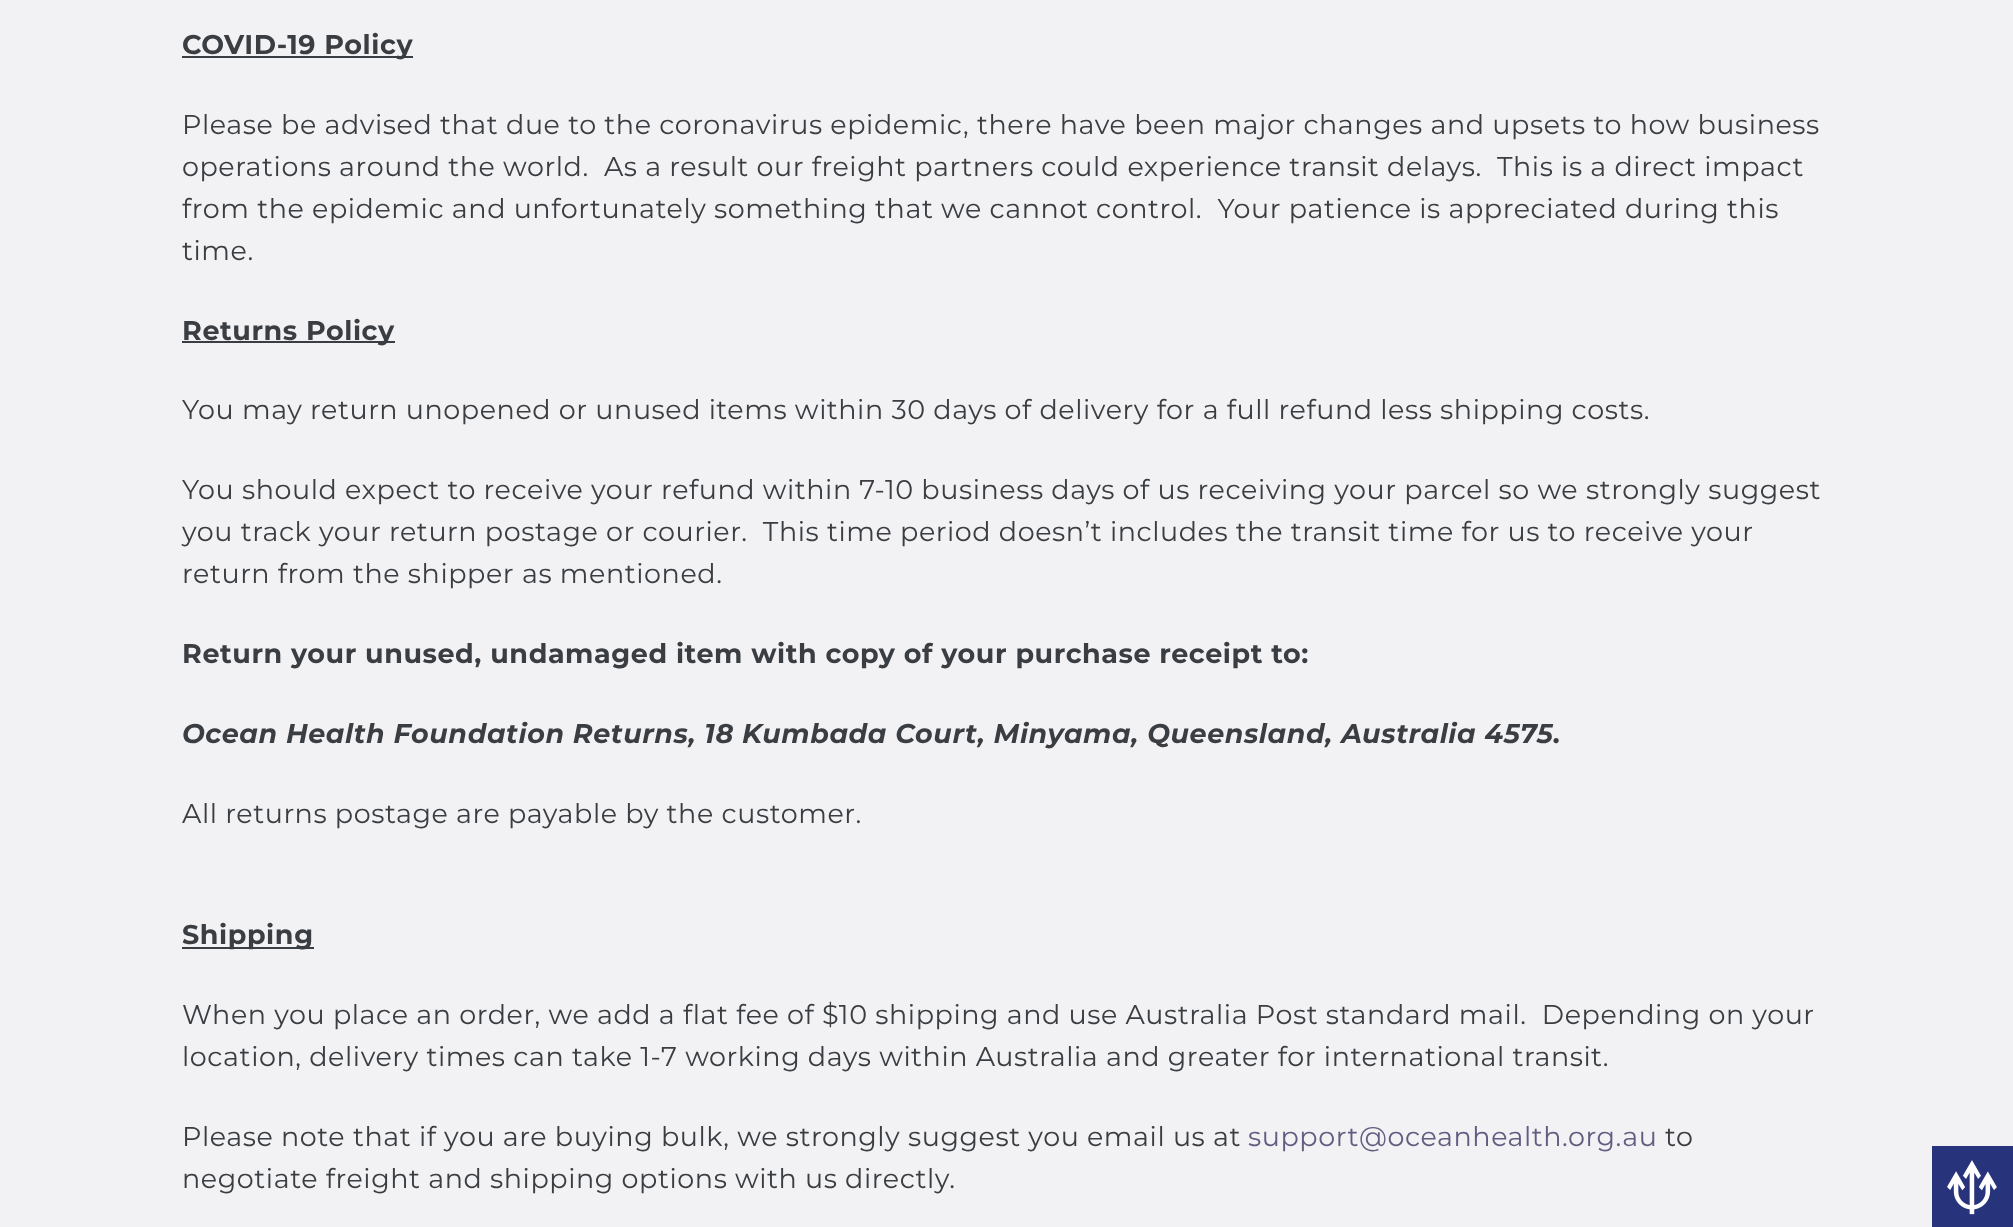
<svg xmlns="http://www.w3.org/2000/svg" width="2013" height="1227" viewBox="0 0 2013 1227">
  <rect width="100%" height="100%" fill="rgb(242,242,244)"/>
  <rect x="182" y="56" width="231" height="2" fill="rgb(58,61,65)"/>
  <text x="182" y="54" font-family="Montserrat" font-size="27" font-weight="bold" letter-spacing="0.57" fill="rgb(58,61,65)">COVID-19 Policy</text>
  <g font-family="Montserrat" font-size="27" letter-spacing="0.57" fill="rgb(58,61,65)">
    <text xml:space="preserve"><tspan x="182" y="134">Please be advised that due to the coronavirus epidemic, there have been major changes and upsets to how business</tspan><tspan x="182" y="176">operations around the world.  As a result our freight partners could experience transit delays.  This is a direct impact</tspan><tspan x="182" y="218">from the epidemic and unfortunately something that we cannot control.  Your patience is appreciated during this</tspan><tspan x="182" y="260">time.</tspan></text>
  </g>
  <rect x="182" y="341" width="213" height="2" fill="rgb(58,61,65)"/>
  <text x="182" y="340" font-family="Montserrat" font-size="27" font-weight="bold" letter-spacing="0.57" fill="rgb(58,61,65)">Returns Policy</text>
  <g font-family="Montserrat" font-size="27" letter-spacing="0.57" fill="rgb(58,61,65)">
    <text x="182" y="419">You may return unopened or unused items within 30 days of delivery for a full refund less shipping costs.</text>
    <text xml:space="preserve"><tspan x="182" y="499">You should expect to receive your refund within 7-10 business days of us receiving your parcel so we strongly suggest</tspan><tspan x="182" y="541">you track your return postage or courier.  This time period doesn’t includes the transit time for us to receive your</tspan><tspan x="182" y="583">return from the shipper as mentioned.</tspan></text>
  </g>
  <text x="182" y="663" font-family="Montserrat" font-size="27" font-weight="bold" letter-spacing="0.57" fill="rgb(58,61,65)">Return your unused, undamaged item with copy of your purchase receipt to:</text>
  <text x="182" y="743" font-family="Montserrat" font-size="27" font-weight="bold" font-style="italic" letter-spacing="0.57" fill="rgb(58,61,65)">Ocean Health Foundation Returns, 18 Kumbada Court, Minyama, Queensland, Australia 4575.</text>
  <text x="182" y="823" font-family="Montserrat" font-size="27" letter-spacing="0.57" fill="rgb(58,61,65)">All returns postage are payable by the customer.</text>
  <rect x="182" y="947" width="132" height="2" fill="rgb(58,61,65)"/>
  <text x="182" y="944" font-family="Montserrat" font-size="27" font-weight="bold" letter-spacing="0.57" fill="rgb(58,61,65)">Shipping</text>
  <g font-family="Montserrat" font-size="27" letter-spacing="0.57" fill="rgb(58,61,65)">
    <text xml:space="preserve"><tspan x="182" y="1024">When you place an order, we add a flat fee of $10 shipping and use Australia Post standard mail.  Depending on your</tspan><tspan x="182" y="1066">location, delivery times can take 1-7 working days within Australia and greater for international transit.</tspan></text>
    <text x="182" y="1146">Please note that if you are buying bulk, we strongly suggest you email us at</text>
  </g>
  <text x="1248" y="1146" font-family="Montserrat" font-size="27" letter-spacing="0.57" fill="rgb(99,92,129)">support@oceanhealth.org.au</text>
  <g font-family="Montserrat" font-size="27" letter-spacing="0.57" fill="rgb(58,61,65)">
    <text x="1665" y="1146">to</text>
    <text x="182" y="1188">negotiate freight and shipping options with us directly.</text>
  </g>
  <rect x="1932" y="1146" width="81" height="81" fill="rgb(39,52,123)"/>
  <image x="1947" y="1160" width="50" height="55" href="pic1.png"/>
</svg>
